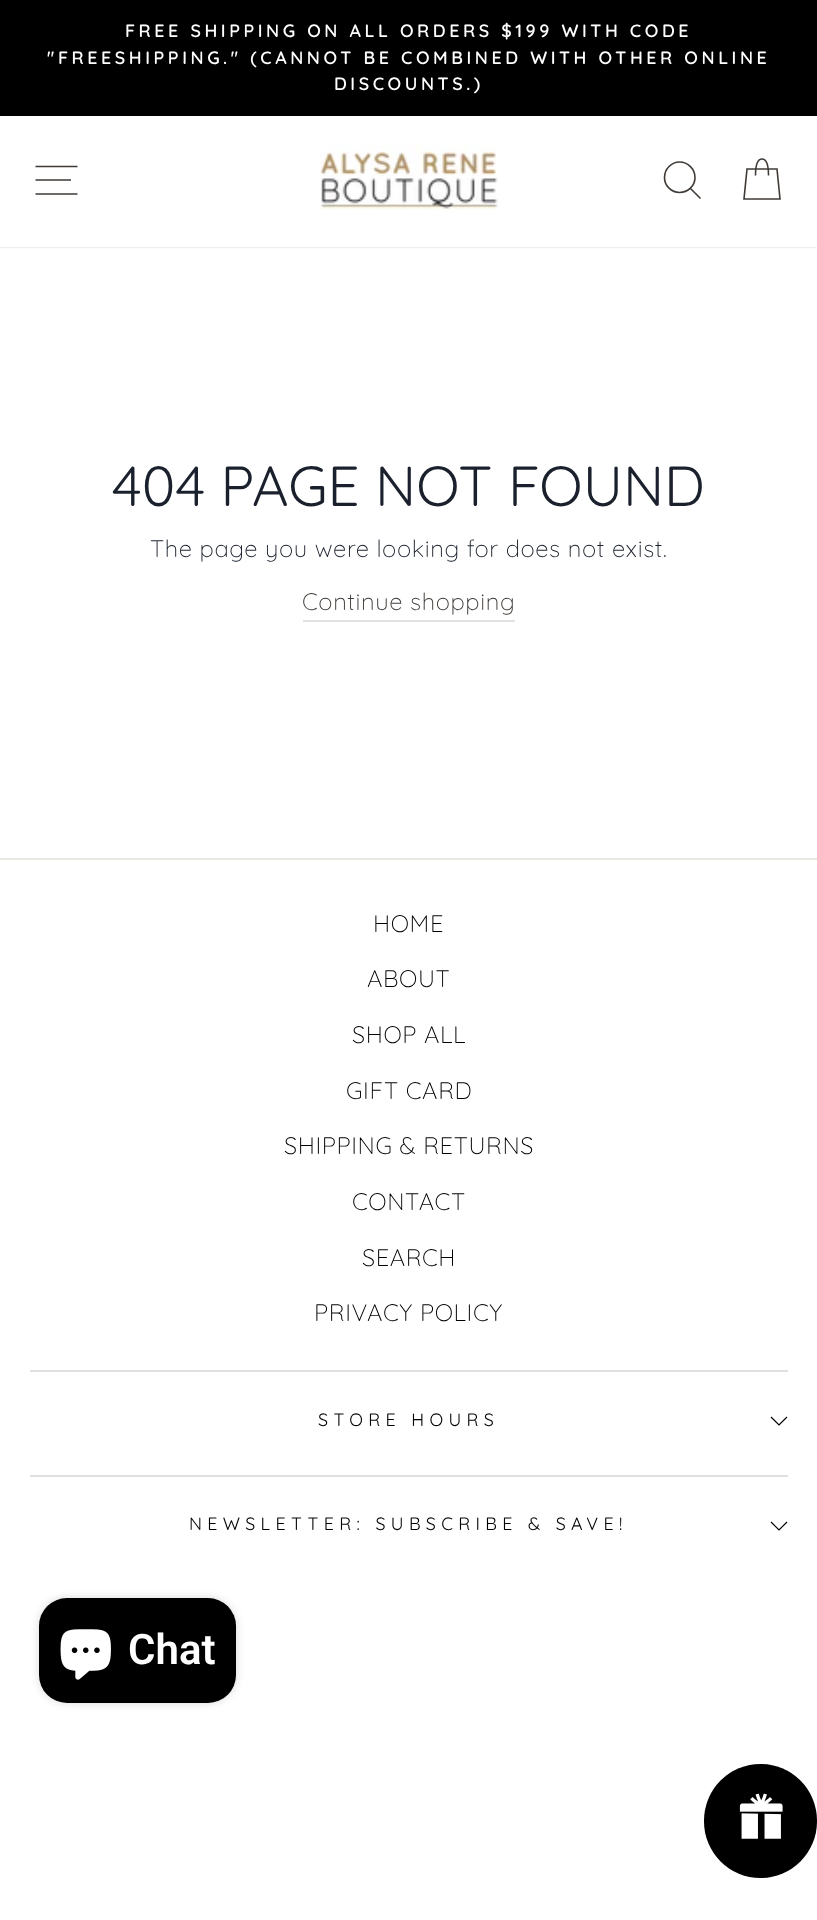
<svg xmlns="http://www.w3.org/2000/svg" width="817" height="1920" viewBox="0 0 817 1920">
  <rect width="100%" height="100%" fill="rgb(255,255,255)"/>
  <rect x="0" y="0" width="817" height="116" fill="rgb(0,0,0)"/>
  <g font-family="Quicksand" font-size="17.85" font-weight="600" letter-spacing="3.57" fill="rgb(255,255,255)">
    <text x="125" y="37">FREE SHIPPING ON ALL ORDERS $199 WITH CODE</text>
    <text x="47" y="64">"FREESHIPPING." (CANNOT BE COMBINED WITH OTHER ONLINE</text>
    <text x="334" y="90">DISCOUNTS.)</text>
  </g>
  <rect x="0" y="116" width="817" height="131" fill="rgba(0,0,0,0.2)" filter="blur(1px)"/>
  <rect x="0" y="116" width="817" height="131" fill="rgb(255,255,255)"/>
  <path d="M35.5 166.5H77.5M35.5 180H71M35.5 194H77.5" fill="none" stroke="rgb(64,59,55)" stroke-width="1.6"/>
  <image x="319" y="145" width="179" height="66" href="pic1.png"/>
  <path d="M695 177.5C695 186 688 192.5 679.5 192.5C671.5 192.5 664.5 186 664.5 177.5C664.5 169 671.5 162 679.5 162C688 162 695 169 695 177.5ZM700.5 198.5L690.5 188.5" fill="none" stroke="rgb(64,59,55)" stroke-width="1.6"/>
  <path d="M755.5 175.5C755.5 162.5 758.5 159 762 159C765.5 159 768.5 162.5 768.5 175.5M747 169H777L780 199H744Z" fill="none" stroke="rgb(64,59,55)" stroke-width="1.6"/>
  <text x="112" y="506" font-family="Quicksand" font-size="56.5" fill="rgb(26,32,44)">404 PAGE NOT FOUND</text>
  <text x="150" y="557" font-family="Quicksand" font-size="23.8" font-weight="300" letter-spacing="0.6" fill="rgb(26,32,44)">The page you were looking for does not exist.</text>
  <rect x="303" y="620" width="212" height="2" fill="rgb(226,226,225)"/>
  <text x="302" y="610" font-family="Quicksand" font-size="23.8" font-weight="300" letter-spacing="0.6" fill="rgb(64,59,55)">Continue shopping</text>
  <rect x="0" y="858" width="817" height="2" fill="rgb(232,232,225)"/>
  <g font-family="Quicksand" font-size="23.8" font-weight="300" letter-spacing="0.6" fill="rgb(0,0,0)">
    <text x="373" y="932">HOME</text>
    <text x="367" y="987">ABOUT</text>
    <text x="352" y="1043">SHOP ALL</text>
    <text x="346" y="1099">GIFT CARD</text>
    <text x="284" y="1154">SHIPPING &amp; RETURNS</text>
    <text x="352" y="1210">CONTACT</text>
    <text x="362" y="1266">SEARCH</text>
    <text x="314" y="1321">PRIVACY POLICY</text>
  </g>
  <rect x="30" y="1370" width="758" height="2" fill="rgb(224,224,224)"/>
  <text x="318" y="1426" font-family="Quicksand" font-size="17.85" letter-spacing="5.35" fill="rgb(0,0,0)">STORE HOURS</text>
  <path d="M771 1417L779 1425L787 1417" fill="none" stroke="rgb(0,0,0)" stroke-width="1.2"/>
  <rect x="30" y="1475" width="758" height="2" fill="rgb(224,224,224)"/>
  <text x="189" y="1530" font-family="Quicksand" font-size="17.85" letter-spacing="5.35" fill="rgb(0,0,0)">NEWSLETTER: SUBSCRIBE &amp; SAVE!</text>
  <path d="M771 1522L779 1530L787 1522" fill="none" stroke="rgb(0,0,0)" stroke-width="1.2"/>
  <rect x="39" y="1598" width="197" height="105" rx="28" fill="rgba(0,0,0,0.15)" filter="blur(4.5px)"/>
  <rect x="39" y="1598" width="197" height="105" rx="28" fill="rgb(0,0,0)"/>
  <image x="60" y="1629" width="51" height="51" href="pic2.png"/>
  <text x="128" y="1664" font-family="Roboto" font-size="42" font-weight="600" fill="rgb(255,255,255)">Chat</text>
  <rect x="704" y="1764" width="113" height="114" rx="56.5" fill="rgb(0,0,0)"/>
  <image x="739" y="1793" width="44" height="46" href="pic3.png"/>
</svg>
